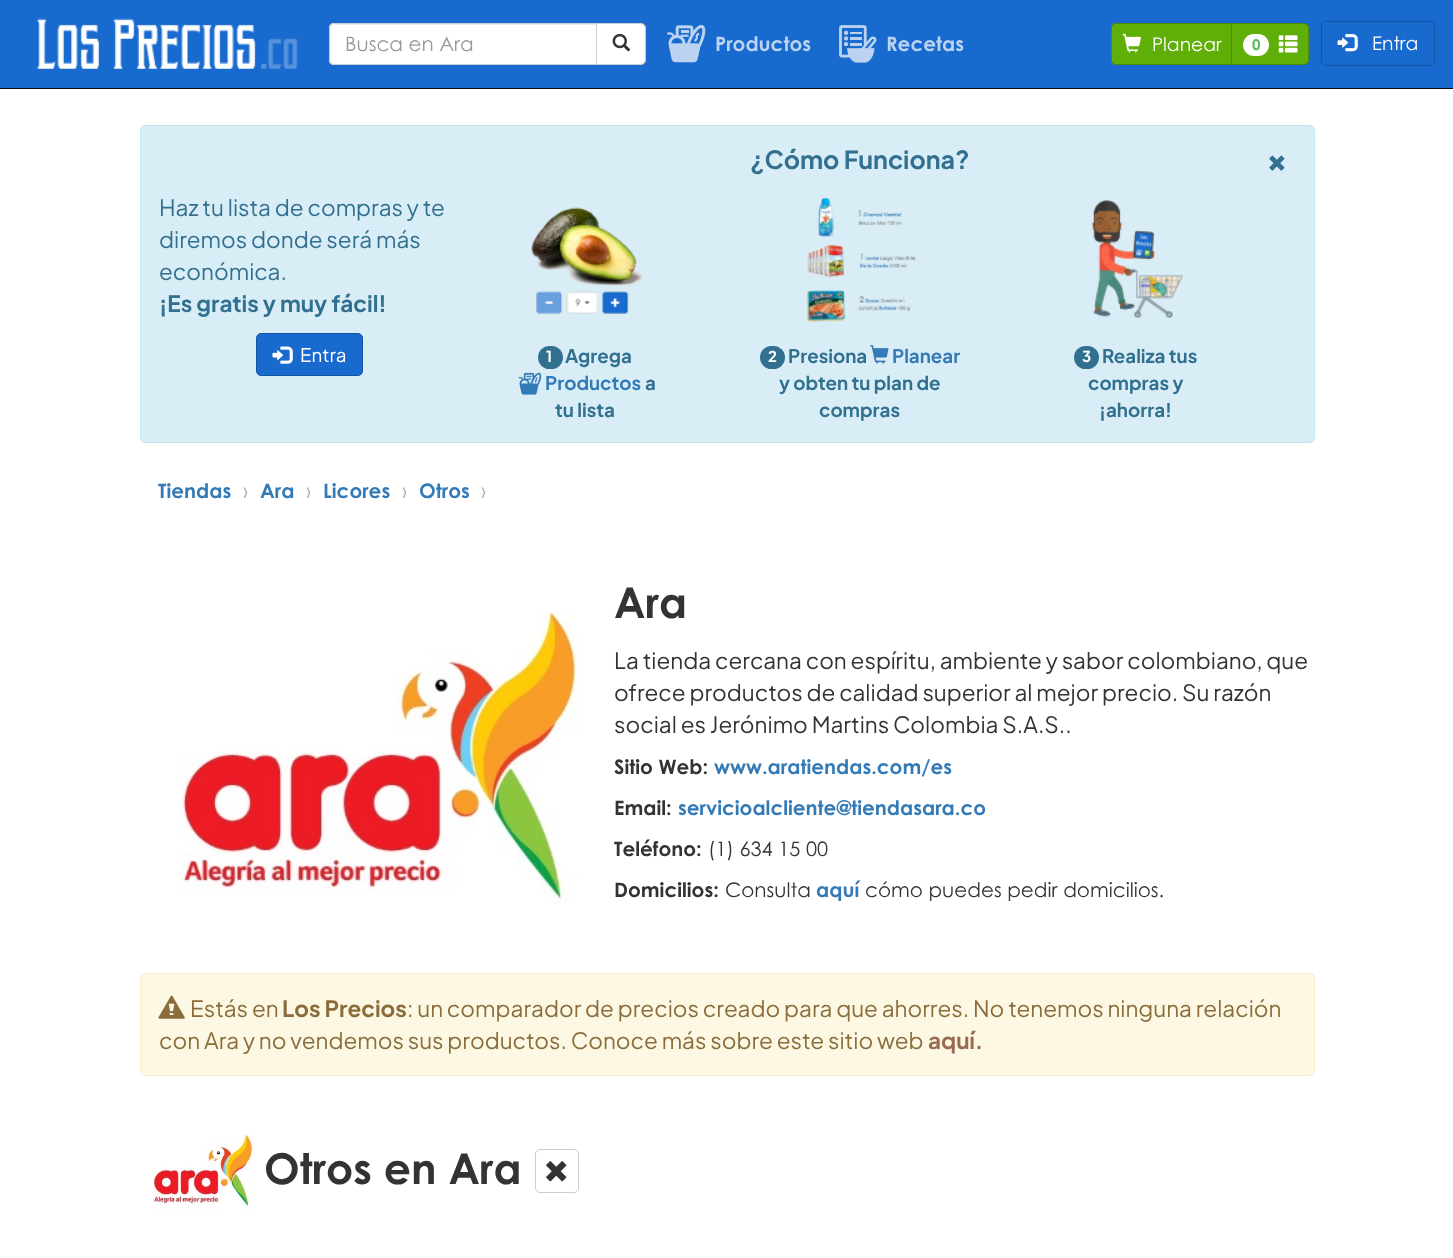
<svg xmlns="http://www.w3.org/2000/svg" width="1453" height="1258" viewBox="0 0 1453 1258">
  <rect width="100%" height="100%" fill="rgb(255,255,255)"/>
  <rect x="0" y="0" width="1453" height="88" fill="rgb(24,106,206)"/>
  <rect x="0" y="88" width="1453" height="1" fill="rgb(8,8,8)"/>
  <image x="37" y="18" width="261" height="51" href="pic1.png"/>
  <path d="M334 23H598V65H334C331 65 329 63 329 60V28C329 25 331 23 334 23Z" fill="rgb(255,255,255)"/>
  <path d="M334 25H596V24H334C331 24 330 26 330 29C330 27 332 25 334 25Z" fill="rgb(236,236,236)"/>
  <path d="M334 23.5H597.5V64.5H334C331.5 64.5 329.5 62.5 329.5 60V28C329.5 25.5 331.5 23.5 334 23.5Z" fill="none" stroke="rgb(204,204,204)"/>
  <text x="345" y="51" font-family="Century Gothic" font-size="20" fill="rgb(153,153,153)">Busca en Ara</text>
  <path d="M596.5 23.5H641C643.5 23.5 645.5 25.5 645.5 28V60C645.5 62.5 643.5 64.5 641 64.5H596.5Z" fill="rgb(255,255,255)" stroke="rgb(204,204,204)"/>
  <image x="612" y="33" width="19" height="19" href="pic2.png"/>
  <image x="667" y="24" width="39" height="39" href="pic3.png"/>
  <text x="715" y="51" font-family="Century Gothic" font-size="20" font-weight="bold" fill="rgb(187,211,240)">Productos</text>
  <image x="839" y="25" width="38" height="38" href="pic4.png"/>
  <text x="886" y="51" font-family="Century Gothic" font-size="20" font-weight="bold" fill="rgb(187,211,240)">Recetas</text>
  <path d="M1116 23.5H1232.5V64.5H1116C1113.5 64.5 1111.5 62.5 1111.5 60V28C1111.5 25.5 1113.5 23.5 1116 23.5Z" fill="rgb(95,175,8)" stroke="rgb(76,140,6)"/>
  <image x="1122" y="33" width="19" height="20" href="pic5.png"/>
  <text x="1152" y="51" font-family="Century Gothic" font-size="18.75" fill="rgb(255,255,255)">Planear</text>
  <path d="M1231.5 23.5H1304C1306.5 23.5 1308.5 25.5 1308.5 28V60C1308.5 62.5 1306.5 64.5 1304 64.5H1231.5Z" fill="rgb(95,175,8)" stroke="rgb(76,140,6)"/>
  <rect x="1243" y="34" width="26" height="22" rx="11" fill="rgb(255,255,255)"/>
  <text x="1252" y="50" font-family="Century Gothic" font-size="15" font-weight="bold" fill="rgb(92,184,92)">0</text>
  <image x="1278" y="35" width="20" height="18" href="pic6.png"/>
  <rect x="1321.5" y="21.5" width="113" height="44" rx="4.5" fill="none" stroke="rgb(19,85,165)"/>
  <image x="1337" y="34" width="21" height="18" href="pic7.png"/>
  <text x="1372" y="50" font-family="Century Gothic" font-size="18.75" fill="rgb(255,255,255)">Entra</text>
  <rect x="140.5" y="125.5" width="1174" height="317" rx="4.5" fill="rgb(217,237,247)" stroke="rgb(188,232,241)"/>
  <g font-family="Plus Jakarta Sans" font-size="22.5" fill="rgb(49,112,143)">
    <text>
      <tspan x="159" y="216">Haz tu lista de compras y te</tspan>
      <tspan x="159" y="248">diremos donde será más</tspan>
      <tspan x="159" y="280">económica.</tspan>
    </text>
  </g>
  <text x="159" y="312" font-family="Plus Jakarta Sans" font-size="22.5" font-weight="bold" fill="rgb(49,112,143)">¡Es gratis y muy fácil!</text>
  <rect x="256.5" y="333.5" width="106" height="42" rx="4.5" fill="rgb(24,106,206)" stroke="rgb(19,85,165)"/>
  <image x="272" y="346" width="21" height="18" href="pic8.png"/>
  <text x="300" y="362" font-family="Plus Jakarta Sans" font-size="18.75" fill="rgb(255,255,255)">Entra</text>
  <text x="750" y="169" font-family="Plus Jakarta Sans" font-size="25" font-weight="bold" fill="rgb(49,112,143)">¿Cómo Funciona?</text>
  <image x="531" y="207" width="112" height="107" href="pic9.png"/>
  <rect x="538" y="346" width="25" height="23" rx="11.5" fill="rgb(49,112,143)"/>
  <text x="546" y="362" font-family="Plus Jakarta Sans" font-size="15" font-weight="bold" fill="rgb(255,255,255)">1</text>
  <text x="565" y="363" font-family="Plus Jakarta Sans" font-size="18.75" font-weight="bold" fill="rgb(49,112,143)">Agrega</text>
  <image x="518" y="372" width="24" height="23" href="pic10.png"/>
  <text x="545" y="390" font-family="Plus Jakarta Sans" font-size="18.75" font-weight="bold" fill="rgb(51,122,183)">Productos</text>
  <g font-family="Plus Jakarta Sans" font-size="18.75" font-weight="bold" fill="rgb(49,112,143)">
    <text x="645" y="390">a</text>
    <text x="555" y="417">tu lista</text>
  </g>
  <image x="806" y="197" width="110" height="125" href="pic11.png"/>
  <rect x="760" y="346" width="25" height="23" rx="11.5" fill="rgb(49,112,143)"/>
  <text x="768" y="362" font-family="Plus Jakarta Sans" font-size="15" font-weight="bold" fill="rgb(255,255,255)">2</text>
  <text x="788" y="363" font-family="Plus Jakarta Sans" font-size="18.75" font-weight="bold" fill="rgb(49,112,143)">Presiona</text>
  <image x="870" y="345" width="19" height="19" href="pic12.png"/>
  <text x="892" y="363" font-family="Plus Jakarta Sans" font-size="18.75" font-weight="bold" fill="rgb(51,122,183)">Planear</text>
  <g font-family="Plus Jakarta Sans" font-size="18.75" font-weight="bold" fill="rgb(49,112,143)">
    <text x="779" y="390">y obten tu plan de</text>
    <text x="819" y="417">compras</text>
  </g>
  <image x="1091" y="199" width="92" height="119" href="pic13.png"/>
  <rect x="1074" y="346" width="25" height="23" rx="11.5" fill="rgb(49,112,143)"/>
  <text x="1082" y="362" font-family="Plus Jakarta Sans" font-size="15" font-weight="bold" fill="rgb(255,255,255)">3</text>
  <g font-family="Plus Jakarta Sans" font-size="18.75" font-weight="bold" fill="rgb(49,112,143)">
    <text x="1102" y="363">Realiza tus</text>
    <text x="1088" y="390">compras y</text>
    <text x="1099" y="417">¡ahorra!</text>
  </g>
  <image x="1269" y="155" width="16" height="16" href="pic14.png"/>
  <text x="158" y="498" font-family="Century Gothic" font-size="20" font-weight="bold" fill="rgb(51,122,183)">Tiendas</text>
  <text x="243" y="498" font-family="Century Gothic" font-size="20" fill="rgb(170,170,170)">›</text>
  <text x="260" y="498" font-family="Century Gothic" font-size="20" font-weight="bold" fill="rgb(51,122,183)">Ara</text>
  <text x="306" y="498" font-family="Century Gothic" font-size="20" fill="rgb(170,170,170)">›</text>
  <text x="323" y="498" font-family="Century Gothic" font-size="20" font-weight="bold" fill="rgb(51,122,183)">Licores</text>
  <text x="402" y="498" font-family="Century Gothic" font-size="20" fill="rgb(170,170,170)">›</text>
  <text x="419" y="498" font-family="Century Gothic" font-size="20" font-weight="bold" fill="rgb(51,122,183)">Otros</text>
  <text x="481" y="498" font-family="Century Gothic" font-size="20" fill="rgb(170,170,170)">›</text>
  <image x="178" y="612" width="400" height="292" href="pic15.png"/>
  <text x="614" y="618" font-family="Century Gothic" font-size="42.5" font-weight="bold" fill="rgb(51,51,51)">Ara</text>
  <g font-family="Plus Jakarta Sans" font-size="22.5" fill="rgb(51,51,51)">
    <text>
      <tspan x="614" y="669">La tienda cercana con espíritu, ambiente y sabor colombiano, que</tspan>
      <tspan x="614" y="701">ofrece productos de calidad superior al mejor precio. Su razón</tspan>
      <tspan x="614" y="733">social es Jerónimo Martins Colombia S.A.S..</tspan>
    </text>
  </g>
  <text x="614" y="774" font-family="Century Gothic" font-size="20" font-weight="bold" fill="rgb(51,51,51)">Sitio Web:</text>
  <text x="714" y="774" font-family="Century Gothic" font-size="20" font-weight="bold" fill="rgb(51,122,183)">www.aratiendas.com/es</text>
  <text x="614" y="815" font-family="Century Gothic" font-size="20" font-weight="bold" fill="rgb(51,51,51)">Email:</text>
  <text x="678" y="815" font-family="Century Gothic" font-size="20" font-weight="bold" fill="rgb(51,122,183)">servicioalcliente@tiendasara.co</text>
  <text x="614" y="856" font-family="Century Gothic" font-size="20" font-weight="bold" fill="rgb(51,51,51)">Teléfono:</text>
  <text x="708" y="856" font-family="Century Gothic" font-size="20" fill="rgb(51,51,51)">(1) 634 15 00</text>
  <text x="614" y="897" font-family="Century Gothic" font-size="20" font-weight="bold" fill="rgb(51,51,51)">Domicilios:</text>
  <text x="725" y="897" font-family="Century Gothic" font-size="20" fill="rgb(51,51,51)">Consulta</text>
  <text x="816" y="897" font-family="Century Gothic" font-size="20" font-weight="bold" fill="rgb(51,122,183)">aquí</text>
  <text x="865" y="897" font-family="Century Gothic" font-size="20" fill="rgb(51,51,51)">cómo puedes pedir domicilios.</text>
  <rect x="140.5" y="973.5" width="1174" height="102" rx="4.5" fill="rgb(252,248,227)" stroke="rgb(250,235,204)"/>
  <image x="158" y="995" width="27" height="24" href="pic16.png"/>
  <text x="190" y="1017" font-family="Plus Jakarta Sans" font-size="22.5" fill="rgb(138,109,59)">Estás en</text>
  <text x="282" y="1017" font-family="Plus Jakarta Sans" font-size="22.5" font-weight="bold" fill="rgb(138,109,59)">Los Precios</text>
  <g font-family="Plus Jakarta Sans" font-size="22.5" fill="rgb(138,109,59)">
    <text x="407" y="1017">: un comparador de precios creado para que ahorres. No tenemos ninguna relación</text>
    <text x="159" y="1049">con Ara y no vendemos sus productos. Conoce más sobre este sitio web</text>
  </g>
  <text x="928" y="1049" font-family="Plus Jakarta Sans" font-size="22.5" font-weight="bold" fill="rgb(153,108,82)">aquí.</text>
  <image x="152" y="1130" width="101" height="80" href="pic17.png"/>
  <text x="264" y="1184" font-family="Century Gothic" font-size="42.5" font-weight="bold" fill="rgb(51,51,51)">Otros en Ara</text>
  <rect x="535.5" y="1149.5" width="43" height="43" rx="4.5" fill="none" stroke="rgb(204,204,204)"/>
  <image x="546" y="1161" width="21" height="21" href="pic18.png"/>
</svg>
